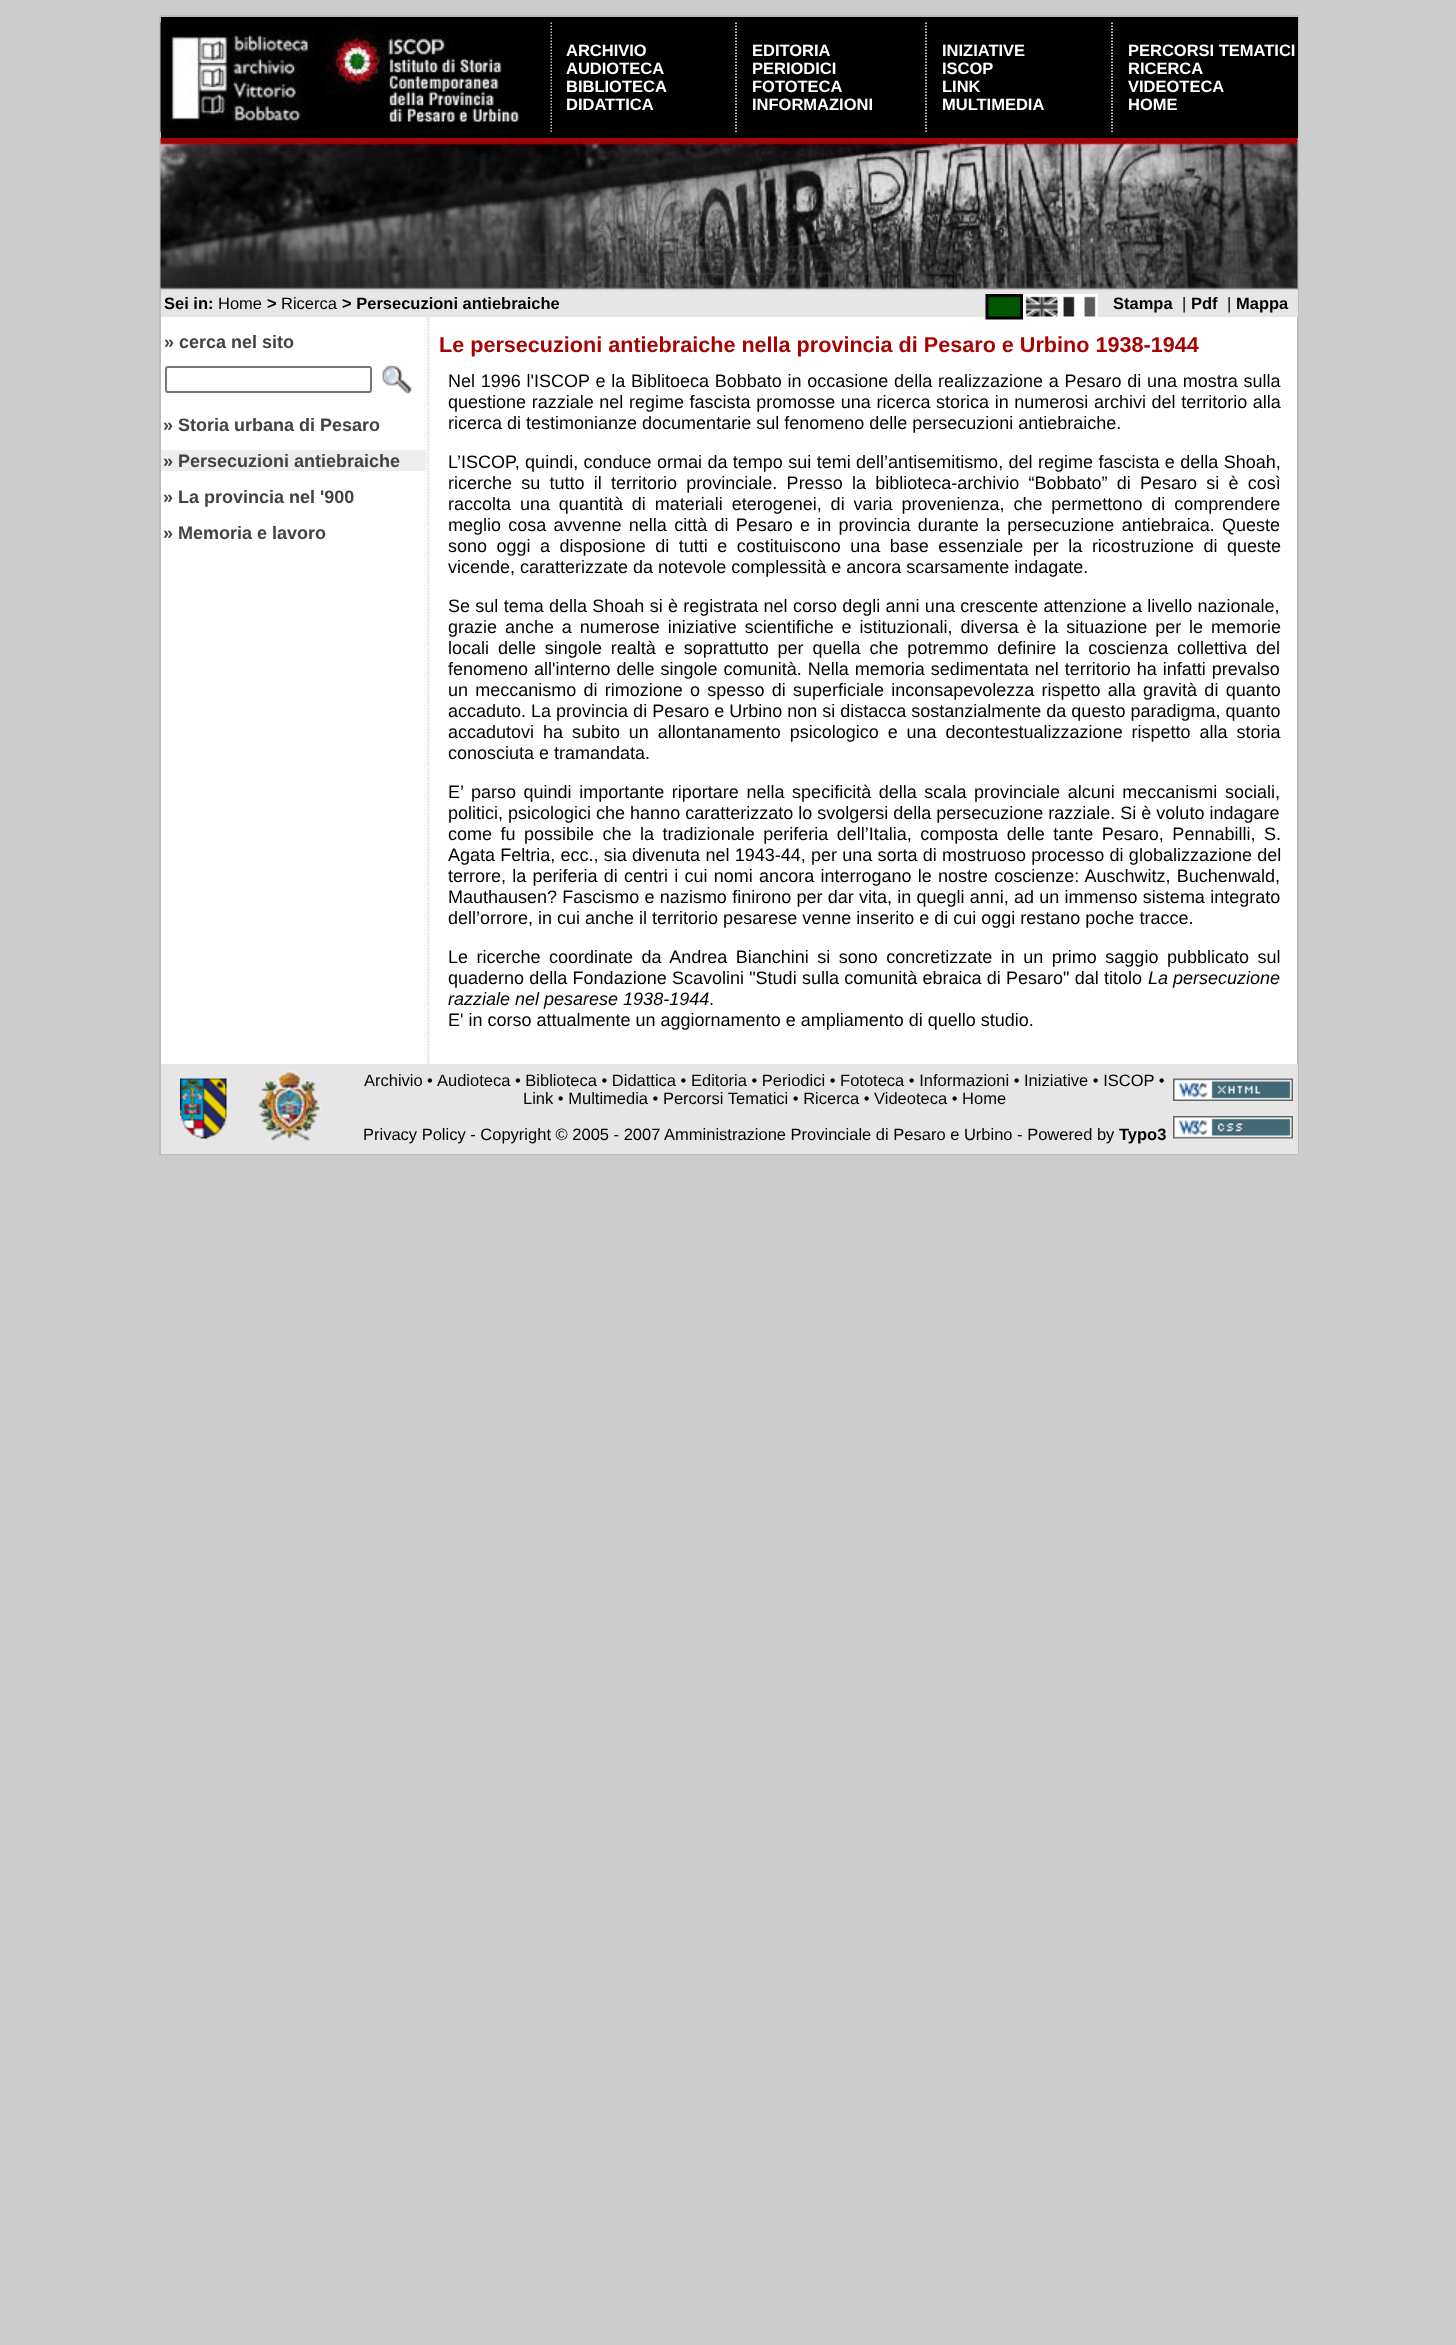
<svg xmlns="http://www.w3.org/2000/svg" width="1456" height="2345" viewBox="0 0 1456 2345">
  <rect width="100%" height="100%" fill="rgb(204,204,204)"/>
  <rect x="161" y="289" width="1136" height="775" fill="rgb(255,255,255)"/>
  <image x="424" y="289" width="7" height="775" href="pic1.png"/>
  <rect x="160" y="16" width="1138" height="1138" fill="none" stroke="rgb(188,188,188)" stroke-width="2"/>
  <rect x="161" y="17" width="1137" height="121" fill="rgb(0,0,0)"/>
  <image x="160" y="22" width="156" height="110" href="pic2.png"/>
  <path d="M551 22.5V132" fill="none" stroke="rgb(255,255,255)" stroke-width="1.5" stroke-dasharray="1.5 1.5"/>
  <image x="325" y="22" width="226" height="110" href="pic3.png"/>
  <path d="M736 22.5V132" fill="none" stroke="rgb(255,255,255)" stroke-width="1.5" stroke-dasharray="1.5 1.5"/>
  <g font-family="Liberation Sans" font-size="16.5" font-weight="bold" fill="rgb(255,255,255)">
    <text>
      <tspan x="566" y="56">ARCHIVIO</tspan>
      <tspan x="566" y="74">AUDIOTECA</tspan>
      <tspan x="566" y="92">BIBLIOTECA</tspan>
      <tspan x="566" y="110">DIDATTICA</tspan>
    </text>
  </g>
  <path d="M926 22.5V132" fill="none" stroke="rgb(255,255,255)" stroke-width="1.5" stroke-dasharray="1.5 1.5"/>
  <g font-family="Liberation Sans" font-size="16.5" font-weight="bold" fill="rgb(255,255,255)">
    <text>
      <tspan x="752" y="56">EDITORIA</tspan>
      <tspan x="752" y="74">PERIODICI</tspan>
      <tspan x="752" y="92">FOTOTECA</tspan>
      <tspan x="752" y="110">INFORMAZIONI</tspan>
    </text>
  </g>
  <path d="M1112 22.5V132" fill="none" stroke="rgb(255,255,255)" stroke-width="1.5" stroke-dasharray="1.5 1.5"/>
  <g font-family="Liberation Sans" font-size="16.5" font-weight="bold" fill="rgb(255,255,255)">
    <text>
      <tspan x="942" y="56">INIZIATIVE</tspan>
      <tspan x="942" y="74">ISCOP</tspan>
      <tspan x="942" y="92">LINK</tspan>
      <tspan x="942" y="110">MULTIMEDIA</tspan>
    </text>
    <text>
      <tspan x="1128" y="56">PERCORSI TEMATICI</tspan>
      <tspan x="1128" y="74">RICERCA</tspan>
      <tspan x="1128" y="92">VIDEOTECA</tspan>
      <tspan x="1128" y="110">HOME</tspan>
    </text>
  </g>
  <image x="160" y="138" width="1138" height="152" href="pic4.png"/>
  <rect x="161" y="290" width="1137" height="27" fill="rgb(230,230,230)"/>
  <text x="164" y="309" font-family="Liberation Sans" font-size="16.5" font-weight="bold" fill="rgb(0,0,0)">Sei in:</text>
  <text x="218" y="309" font-family="Liberation Sans" font-size="16.5" fill="rgb(0,0,0)">Home</text>
  <text x="267" y="309" font-family="Liberation Sans" font-size="16.5" font-weight="bold" fill="rgb(0,0,0)">&gt;</text>
  <text x="281" y="309" font-family="Liberation Sans" font-size="16.5" fill="rgb(0,0,0)">Ricerca</text>
  <text x="342" y="309" font-family="Liberation Sans" font-size="16.5" font-weight="bold" fill="rgb(0,0,0)">&gt; Persecuzioni antiebraiche</text>
  <image x="985" y="294" width="38" height="26" href="pic5.png"/>
  <image x="1023" y="294" width="38" height="23" href="pic6.png"/>
  <image x="1060" y="294" width="38" height="23" href="pic7.png"/>
  <text x="1113" y="309" font-family="Liberation Sans" font-size="16.5" font-weight="bold" fill="rgb(0,0,0)">Stampa</text>
  <text x="1182" y="309" font-family="Liberation Sans" font-size="16.5" fill="rgb(0,0,0)">|</text>
  <text x="1191" y="309" font-family="Liberation Sans" font-size="16.5" font-weight="bold" fill="rgb(0,0,0)">Pdf</text>
  <text x="1227" y="309" font-family="Liberation Sans" font-size="16.5" fill="rgb(0,0,0)">|</text>
  <text x="1236" y="309" font-family="Liberation Sans" font-size="16.5" font-weight="bold" fill="rgb(0,0,0)">Mappa</text>
  <text x="164" y="348" font-family="Liberation Sans" font-size="18" font-weight="bold" fill="rgb(66,66,66)">» cerca nel sito</text>
  <rect x="166" y="367" width="205" height="25" rx="2" fill="none" stroke="rgb(118,118,118)" stroke-width="2"/>
  <image x="382" y="365" width="30" height="29" href="pic8.png"/>
  <text x="163" y="431" font-family="Liberation Sans" font-size="18" font-weight="bold" fill="rgb(66,66,66)">» Storia urbana di Pesaro</text>
  <rect x="161" y="450" width="265" height="21" fill="rgb(238,238,238)"/>
  <g font-family="Liberation Sans" font-size="18" font-weight="bold" fill="rgb(66,66,66)">
    <text x="163" y="467">» Persecuzioni antiebraiche</text>
    <text x="163" y="503">» La provincia nel '900</text>
    <text x="163" y="539">» Memoria e lavoro</text>
  </g>
  <text x="439" y="352" font-family="Liberation Sans" font-size="21.6" font-weight="bold" fill="rgb(167,3,2)">Le persecuzioni antiebraiche nella provincia di Pesaro e Urbino 1938-1944</text>
  <g font-family="Liberation Sans" font-size="18" fill="rgb(0,0,0)">
    <text>
      <tspan x="448" y="387" word-spacing="0.75">Nel 1996 l'ISCOP e la Biblitoeca Bobbato in occasione della realizzazione a Pesaro di una mostra sulla</tspan>
      <tspan x="448" y="408" word-spacing="0.6">questione razziale nel regime fascista promosse una ricerca storica in numerosi archivi del territorio alla</tspan>
      <tspan x="448" y="429">ricerca di testimonianze documentarie sul fenomeno delle persecuzioni antiebraiche.</tspan>
    </text>
    <text>
      <tspan x="448" y="468" word-spacing="0.4">L’ISCOP, quindi, conduce ormai da tempo sui temi dell’antisemitismo, del regime fascista e della Shoah,</tspan>
      <tspan x="448" y="489" word-spacing="4.25">ricerche su tutto il territorio provinciale. Presso la biblioteca-archivio “Bobbato” di Pesaro si è così</tspan>
      <tspan x="448" y="510" word-spacing="3.9">raccolta una quantità di materiali eterogenei, di varia provenienza, che permettono di comprendere</tspan>
      <tspan x="448" y="531" word-spacing="2.25">meglio cosa avvenne nella città di Pesaro e in provincia durante la persecuzione antiebraica. Queste</tspan>
      <tspan x="448" y="552" word-spacing="4.5">sono oggi a disposione di tutti e costituiscono una base essenziale per la ricostruzione di queste</tspan>
      <tspan x="448" y="573">vicende, caratterizzate da notevole complessità e ancora scarsamente indagate.</tspan>
    </text>
    <text>
      <tspan x="448" y="612" word-spacing="0.3">Se sul tema della Shoah si è registrata nel corso degli anni una crescente attenzione a livello nazionale,</tspan>
      <tspan x="448" y="633" word-spacing="2.9">grazie anche a numerose iniziative scientifiche e istituzionali, diversa è la situazione per le memorie</tspan>
      <tspan x="448" y="654" word-spacing="3.9">locali delle singole realtà e soprattutto per quella che potremmo definire la coscienza collettiva del</tspan>
      <tspan x="448" y="675" word-spacing="1">fenomeno all'interno delle singole comunità. Nella memoria sedimentata nel territorio ha infatti prevalso</tspan>
      <tspan x="448" y="696" word-spacing="2.25">un meccanismo di rimozione o spesso di superficiale inconsapevolezza rispetto alla gravità di quanto</tspan>
      <tspan x="448" y="717">accaduto. La provincia di Pesaro e Urbino non si distacca sostanzialmente da questo paradigma, quanto</tspan>
      <tspan x="448" y="738" word-spacing="3.9">accadutovi ha subito un allontanamento psicologico e una decontestualizzazione rispetto alla storia</tspan>
      <tspan x="448" y="759">conosciuta e tramandata.</tspan>
    </text>
    <text>
      <tspan x="448" y="798" word-spacing="2.6">E’ parso quindi importante riportare nella specificità della scala provinciale alcuni meccanismi sociali,</tspan>
      <tspan x="448" y="819">politici, psicologici che hanno caratterizzato lo svolgersi della persecuzione razziale. Si è voluto indagare</tspan>
      <tspan x="448" y="840" word-spacing="3.5">come fu possibile che la tradizionale periferia dell’Italia, composta delle tante Pesaro, Pennabilli, S.</tspan>
      <tspan x="448" y="861" word-spacing="0.25">Agata Feltria, ecc., sia divenuta nel 1943-44, per una sorta di mostruoso processo di globalizzazione del</tspan>
      <tspan x="448" y="882" word-spacing="1.25">terrore, la periferia di centri i cui nomi ancora interrogano le nostre coscienze: Auschwitz, Buchenwald,</tspan>
      <tspan x="448" y="903" word-spacing="0.25">Mauthausen? Fascismo e nazismo finirono per dar vita, in quegli anni, ad un immenso sistema integrato</tspan>
      <tspan x="448" y="924">dell’orrore, in cui anche il territorio pesarese venne inserito e di cui oggi restano poche tracce.</tspan>
    </text>
    <text>
      <tspan x="448" y="963" word-spacing="3.5">Le ricerche coordinate da Andrea Bianchini si sono concretizzate in un primo saggio pubblicato sul</tspan>
      <tspan x="448" y="984" word-spacing="0.25">quaderno della Fondazione Scavolini "Studi sulla comunità ebraica di Pesaro" dal titolo</tspan>
    </text>
  </g>
  <g font-family="Liberation Sans" font-size="18" font-style="italic" fill="rgb(0,0,0)">
    <text x="1148" y="984">La persecuzione</text>
    <text x="448" y="1005">razziale nel pesarese 1938-1944</text>
  </g>
  <g font-family="Liberation Sans" font-size="18" fill="rgb(0,0,0)">
    <text x="709" y="1005">.</text>
    <text x="448" y="1026">E' in corso attualmente un aggiornamento e ampliamento di quello studio.</text>
  </g>
  <rect x="161" y="1064" width="1137" height="90" fill="rgb(230,230,230)"/>
  <image x="180" y="1078" width="47" height="61" href="pic9.png"/>
  <image x="258" y="1071" width="63" height="70" href="pic10.png"/>
  <g font-family="Liberation Sans" font-size="16.5" fill="rgb(0,0,0)">
    <text x="364" y="1086">Archivio</text>
    <text x="427" y="1086">•</text>
    <text x="437" y="1086">Audioteca • Biblioteca • Didattica • Editoria • Periodici • Fototeca • Informazioni • Iniziative • ISCOP •</text>
    <text x="523" y="1104">Link • Multimedia • Percorsi Tematici • Ricerca • Videoteca • Home</text>
    <text x="363" y="1140">Privacy Policy - Copyright © 2005 - 2007 Amministrazione Provinciale di Pesaro e Urbino - Powered by</text>
  </g>
  <text x="1119" y="1140" font-family="Liberation Sans" font-size="16.5" font-weight="bold" fill="rgb(0,0,0)">Typo3</text>
  <image x="1173" y="1078" width="120" height="23" href="pic11.png"/>
  <image x="1173" y="1116" width="120" height="23" href="pic12.png"/>
</svg>
